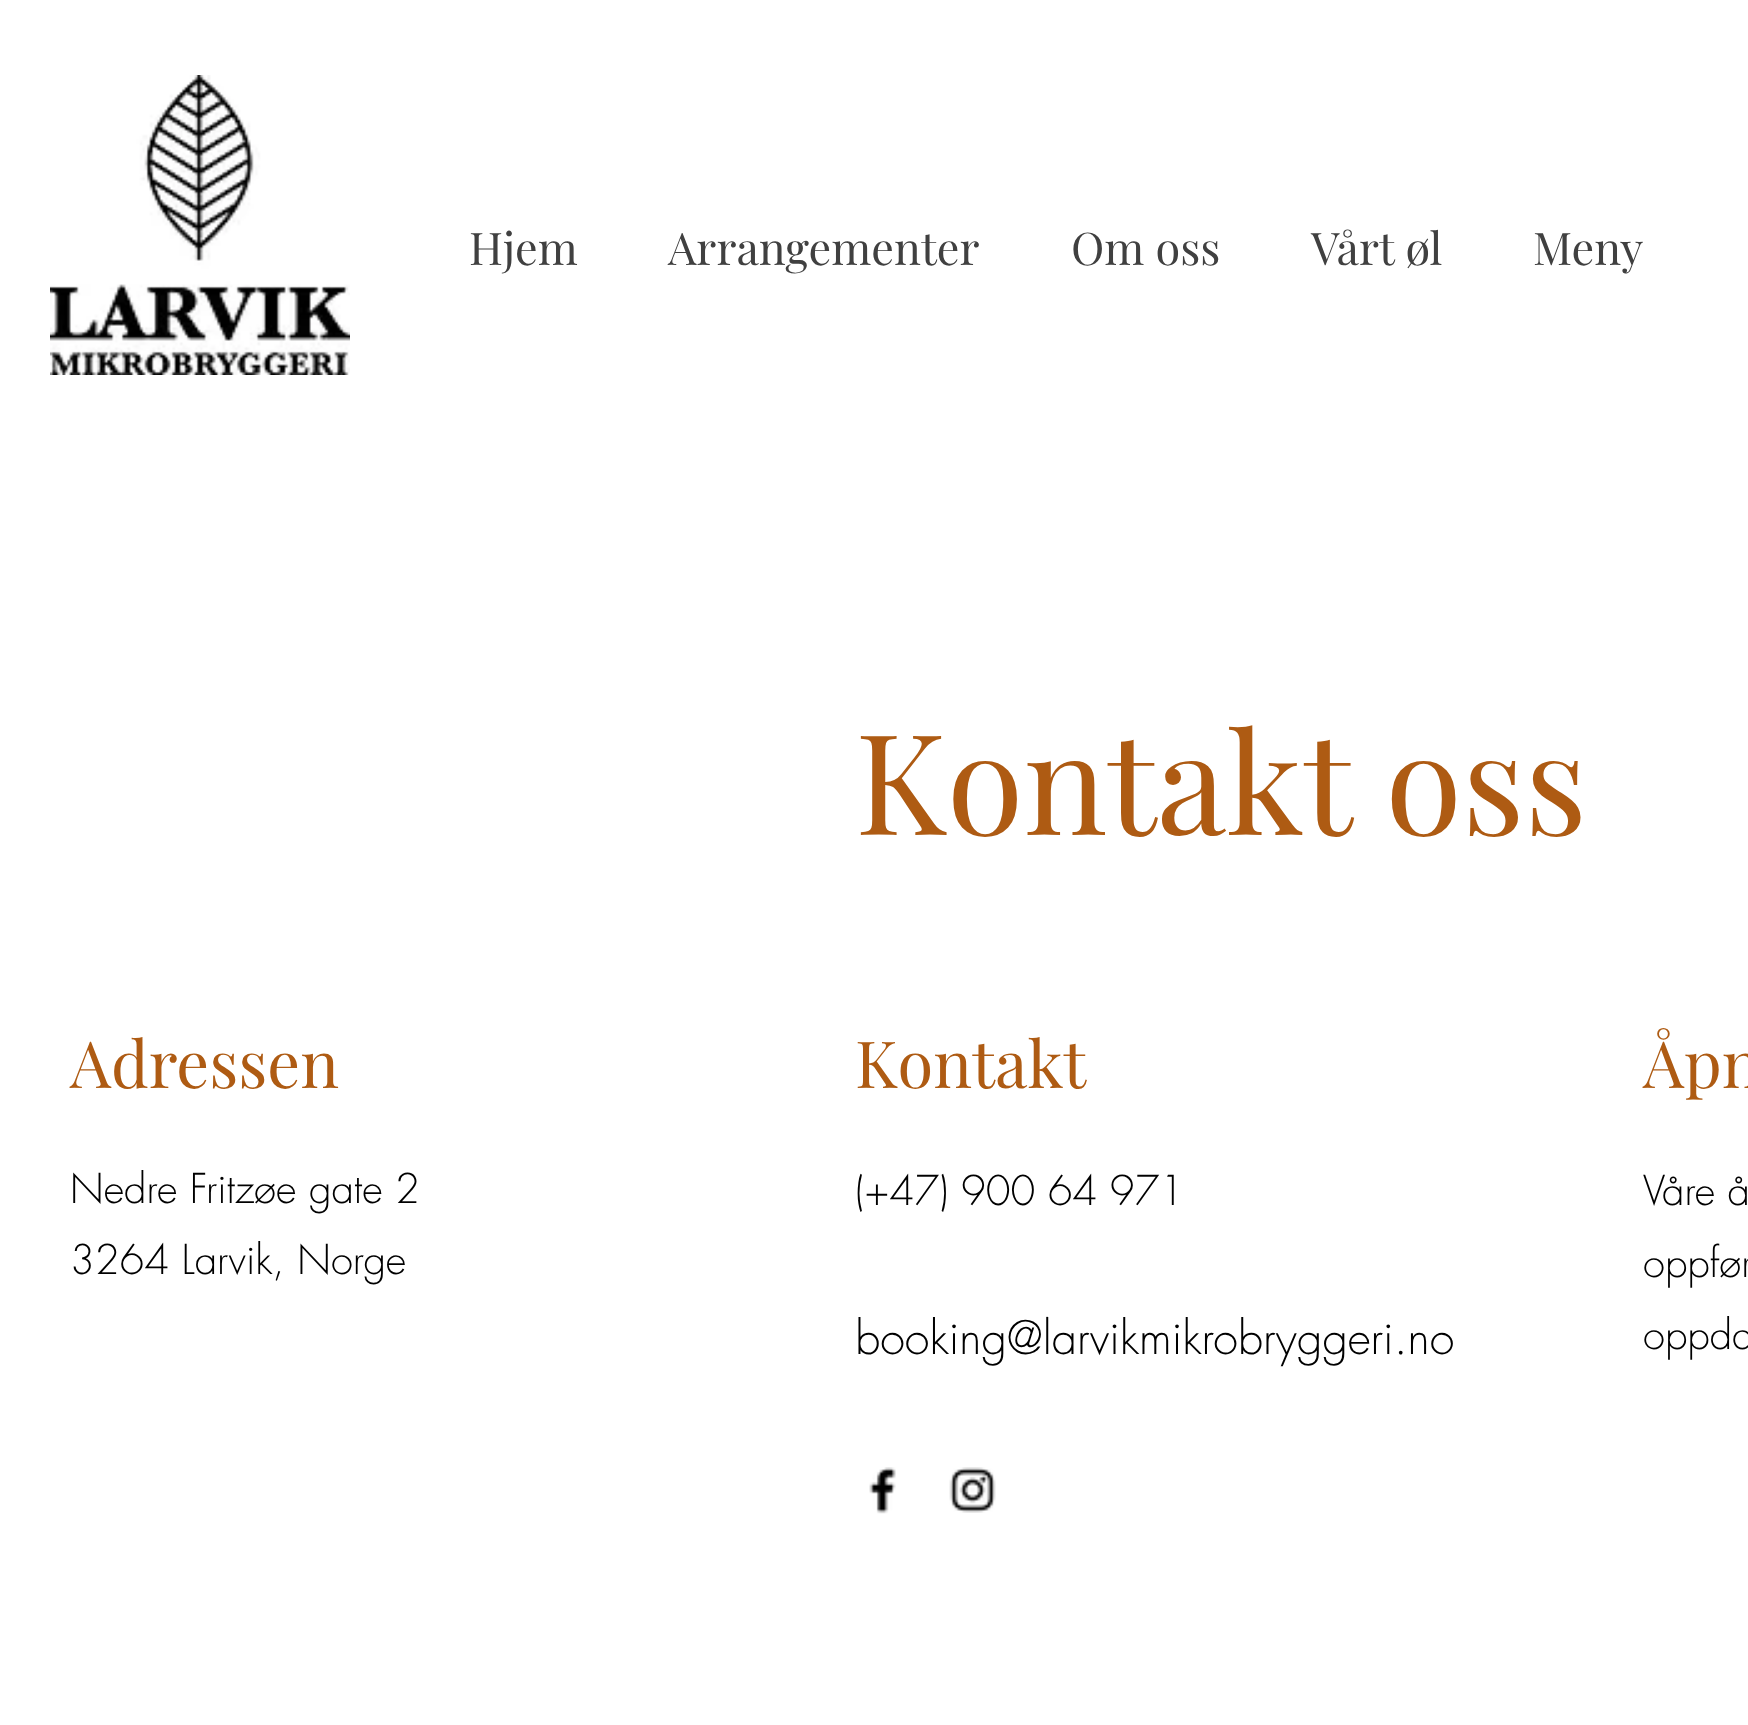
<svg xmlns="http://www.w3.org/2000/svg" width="1748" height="1725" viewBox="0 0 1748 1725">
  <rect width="100%" height="100%" fill="rgb(255,255,255)"/>
  <image x="50" y="75" width="300" height="300" href="pic1.png"/>
  <g font-family="Playfair Display" font-size="45" fill="rgb(64,64,64)">
    <text x="469" y="265">Hjem</text>
    <text x="668" y="265">Arrangementer</text>
    <text x="1071" y="265">Om oss</text>
    <text x="1311" y="265">Vårt øl</text>
    <text x="1533" y="265">Meny</text>
  </g>
  <text x="855" y="835" font-family="Playfair Display" font-size="140" fill="rgb(174,91,19)">Kontakt oss</text>
  <g font-family="Playfair Display" font-size="65" fill="rgb(174,91,19)">
    <text x="70" y="1088">Adressen</text>
    <text x="855" y="1088">Kontakt</text>
    <text x="1643" y="1088">Åpn</text>
  </g>
  <g font-family="futura" font-size="40" font-weight="300" fill="rgb(0,0,0)">
    <text>
      <tspan x="70" y="1203">Nedre Fritzøe gate 2</tspan>
      <tspan x="70" y="1274">3264 Larvik, Norge</tspan>
    </text>
    <text x="855" y="1205">(+47) 900 64 971</text>
    <text>
      <tspan x="1643" y="1205">Våre å</tspan>
      <tspan x="1643" y="1277">oppfør</tspan>
      <tspan x="1643" y="1349">oppda</tspan>
    </text>
  </g>
  <text x="855" y="1354" font-family="futura" font-size="45" font-weight="300" fill="rgb(0,0,0)">booking@larvikmikrobryggeri.no</text>
  <image x="869" y="1467" width="27" height="47" href="pic2.png"/>
  <image x="949" y="1467" width="47" height="46" href="pic3.png"/>
</svg>
